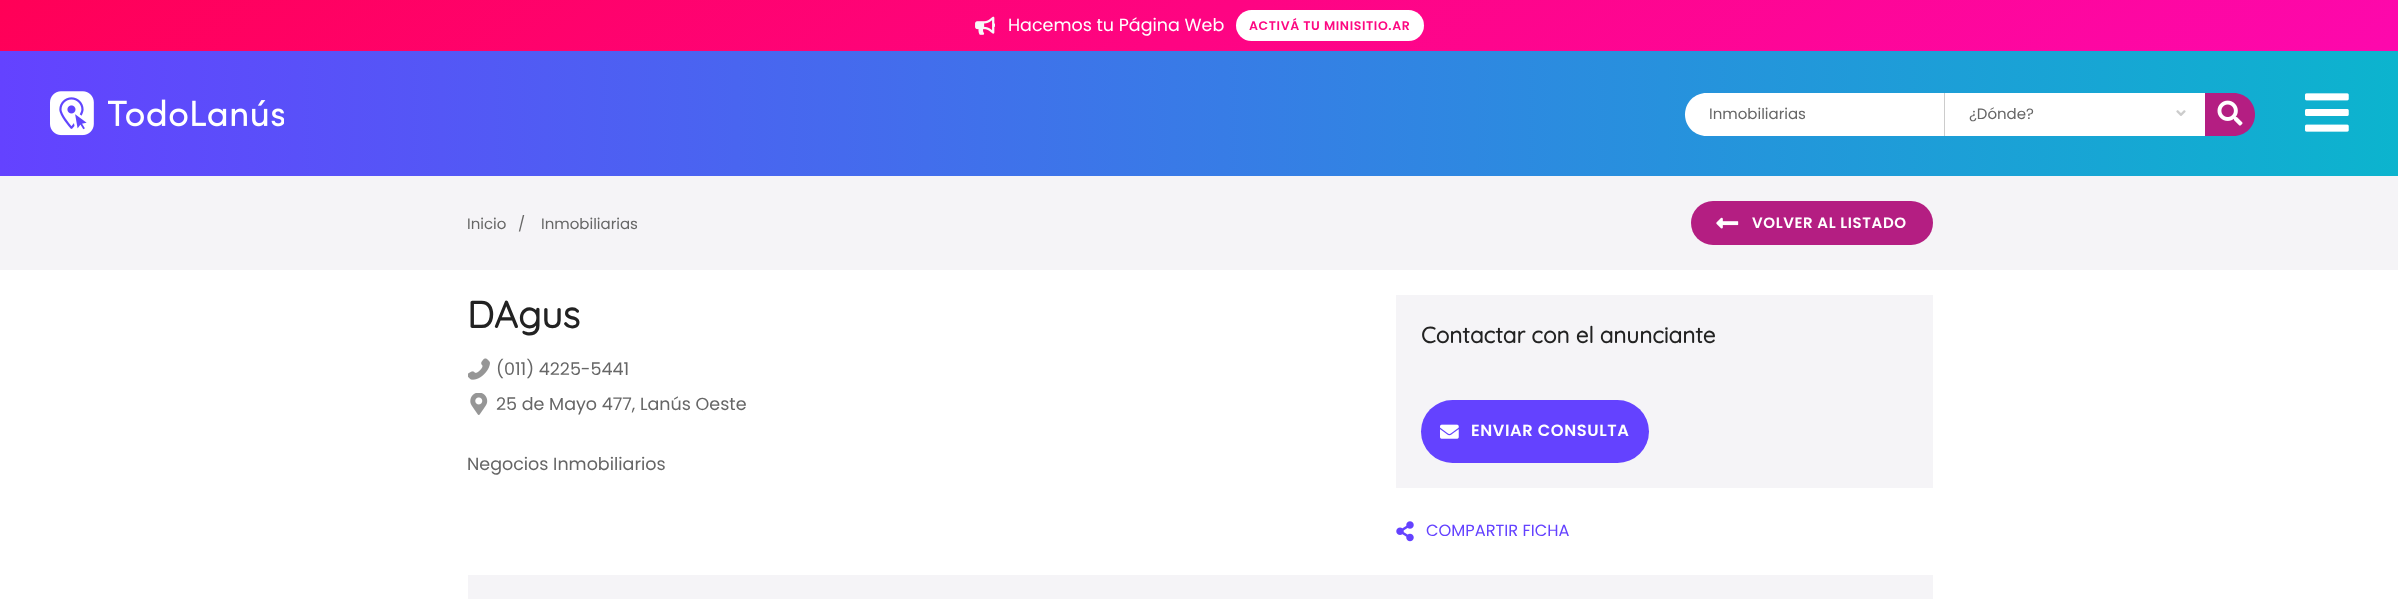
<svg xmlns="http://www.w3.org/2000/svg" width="2398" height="599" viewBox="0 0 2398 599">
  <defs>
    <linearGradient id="g1" gradientUnits="userSpaceOnUse" x1="793" y1="-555" x2="1606" y2="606"><stop offset="0" stop-color="rgb(255,0,87)"/><stop offset="1" stop-color="rgb(253,8,173)"/></linearGradient>
    <linearGradient id="g2" gradientUnits="userSpaceOnUse" x1="0" y1="114" x2="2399" y2="114"><stop offset="0" stop-color="rgb(100,66,255)"/><stop offset="1" stop-color="rgb(12,180,206)"/></linearGradient>
  </defs>
  <rect width="100%" height="100%" fill="rgb(255,255,255)"/>
  <rect x="0" y="0" width="2398" height="51" fill="url(#g1)"/>
  <image x="975" y="16" width="20" height="19" href="pic1.png"/>
  <text x="1008" y="31" font-family="Poppins" font-size="17.5" fill="rgb(255,255,255)">Hacemos tu Página Web</text>
  <rect x="1236" y="10" width="188" height="31" rx="15.5" fill="rgb(255,255,255)"/>
  <text x="1249" y="30" font-family="Poppins" font-size="12.5" font-weight="600" letter-spacing="0.6" fill="rgb(253,8,130)">ACTIVÁ TU MINISITIO.AR</text>
  <rect x="0" y="51" width="2398" height="125" fill="url(#g2)"/>
  <image x="50" y="91" width="234" height="45" href="pic2.png"/>
  <path d="M1706.5 93H1945V136H1706.5C1694.5 136 1685 126.5 1685 114.5C1685 102.5 1694.5 93 1706.5 93Z" fill="rgb(255,255,255)"/>
  <rect x="1944" y="93" width="1" height="43" fill="rgb(204,204,204)"/>
  <text x="1709" y="119" font-family="Poppins" font-size="15" fill="rgb(102,102,102)">Inmobiliarias</text>
  <rect x="1945" y="93" width="260" height="43" fill="rgb(255,255,255)"/>
  <text x="1969" y="119" font-family="Poppins" font-size="15" fill="rgb(102,102,102)">¿Dónde?</text>
  <image x="2176" y="110" width="10" height="6" href="pic3.png"/>
  <path d="M2205 93H2233.5C2245.5 93 2255 102.5 2255 114.5C2255 126.5 2245.5 136 2233.5 136H2205Z" fill="rgb(180,30,130)"/>
  <image x="2217" y="100" width="26" height="26" href="pic4.png"/>
  <image x="2305" y="93" width="44" height="39" href="pic5.png"/>
  <rect x="0" y="176" width="2398" height="94" fill="rgb(245,244,247)"/>
  <g font-family="Poppins" font-size="15" fill="rgb(102,102,102)">
    <text x="467" y="229">Inicio</text>
    <text x="518" y="229">/</text>
    <text x="541" y="229">Inmobiliarias</text>
  </g>
  <rect x="1691" y="201" width="242" height="44" rx="22" fill="rgb(180,30,130)"/>
  <image x="1716" y="217" width="23" height="12" href="pic6.png"/>
  <text x="1752" y="228" font-family="Poppins" font-size="15" font-weight="600" letter-spacing="0.6" fill="rgb(255,255,255)">VOLVER AL LISTADO</text>
  <text x="467" y="328" font-family="Quicksand" font-size="37.5" font-weight="bold" fill="rgb(34,34,34)">DAgus</text>
  <image x="468" y="358" width="22" height="22" href="pic7.png"/>
  <text x="496" y="375" font-family="Poppins" font-size="17.5" fill="rgb(102,102,102)">(011) 4225-5441</text>
  <image x="470" y="393" width="18" height="22" href="pic8.png"/>
  <g font-family="Poppins" font-size="17.5" fill="rgb(102,102,102)">
    <text x="496" y="410">25 de Mayo 477, Lanús Oeste</text>
    <text x="467" y="470">Negocios Inmobiliarios</text>
  </g>
  <rect x="1396" y="295" width="537" height="193" fill="rgb(245,244,247)"/>
  <text x="1421" y="343" font-family="Quicksand" font-size="22.5" font-weight="bold" fill="rgb(34,34,34)">Contactar con el anunciante</text>
  <rect x="1421" y="400" width="228" height="63" rx="31.5" fill="rgb(100,66,255)"/>
  <image x="1440" y="424" width="19" height="15" href="pic9.png"/>
  <text x="1471" y="436" font-family="Poppins" font-size="16.25" font-weight="600" letter-spacing="0.6" fill="rgb(255,255,255)">ENVIAR CONSULTA</text>
  <image x="1396" y="521" width="18" height="21" href="pic10.png"/>
  <text x="1426" y="536" font-family="Poppins" font-size="16.25" fill="rgb(100,66,255)">COMPARTIR FICHA</text>
  <rect x="468" y="575" width="1465" height="24" fill="rgb(245,244,247)"/>
</svg>
